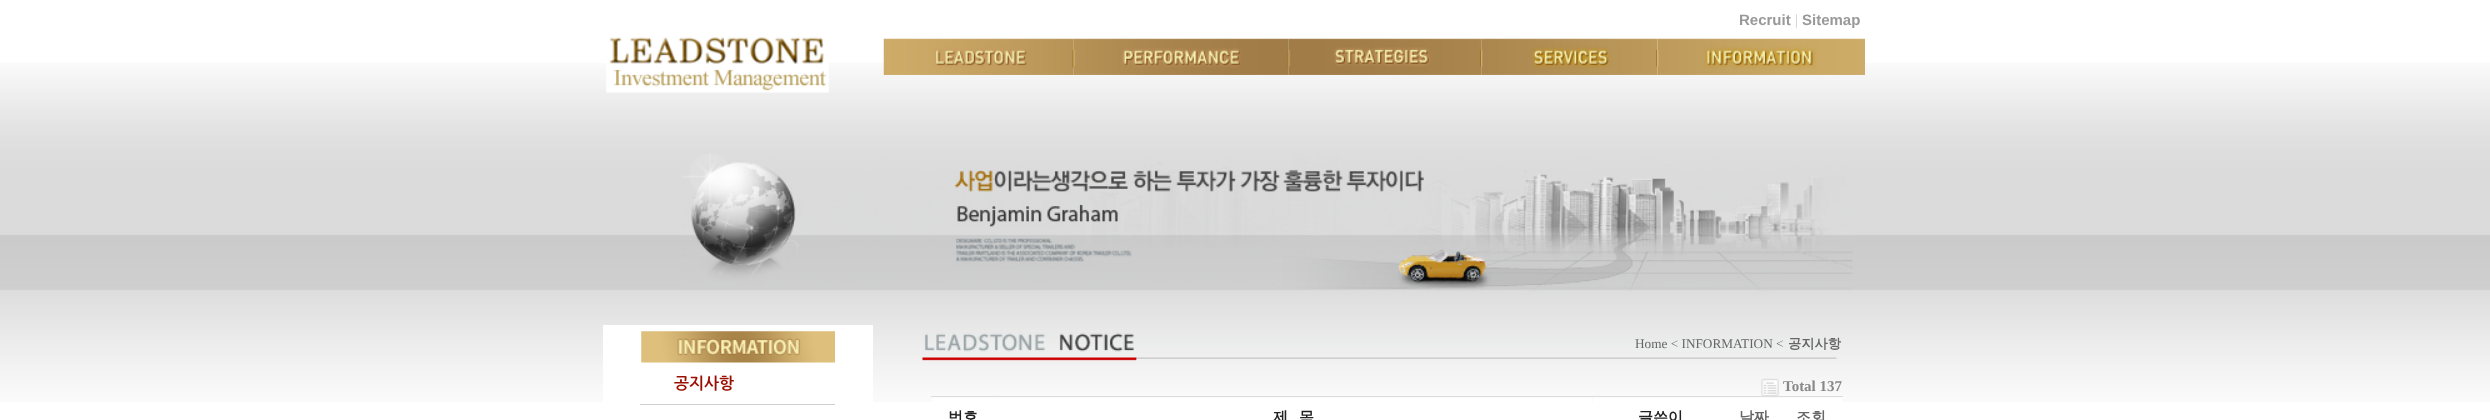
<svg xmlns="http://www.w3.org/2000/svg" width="2490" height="420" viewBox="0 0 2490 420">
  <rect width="100%" height="100%" fill="rgb(255,255,255)"/>
  <image x="0" y="63" width="2490" height="339" href="pic1.png"/>
  <text x="1739" y="25" font-family="Liberation Sans" font-size="15" font-weight="bold" fill="rgb(153,153,153)">Recruit</text>
  <text x="1795" y="25" font-family="Liberation Serif" font-size="15" fill="rgb(204,204,204)">|</text>
  <text x="1802" y="25" font-family="Liberation Sans" font-size="15" font-weight="bold" fill="rgb(153,153,153)">Sitemap</text>
  <image x="883" y="38" width="191" height="37" href="pic2.png"/>
  <image x="1073" y="38" width="216" height="37" href="pic3.png"/>
  <image x="1288" y="38" width="194" height="37" href="pic4.png"/>
  <image x="1481" y="38" width="177" height="37" href="pic5.png"/>
  <image x="1657" y="38" width="208" height="37" href="pic6.png"/>
  <image x="606" y="37" width="223" height="56" href="pic7.png"/>
  <image x="681" y="153" width="1172" height="139" href="pic8.png"/>
  <rect x="603" y="325" width="270" height="77" fill="rgb(255,255,255)"/>
  <image x="641" y="331" width="194" height="32" href="pic9.png"/>
  <rect x="640" y="404" width="195" height="1" fill="rgb(207,207,207)"/>
  <text x="674" y="389" font-family="NanumGothic" font-size="16" font-weight="bold" fill="rgb(155,15,0)">공지사항</text>
  <image x="922" y="333" width="915" height="28" href="pic10.png"/>
  <text x="1635" y="348" font-family="Liberation Serif" font-size="13.25" fill="rgb(102,102,102)">Home &lt; INFORMATION &lt;</text>
  <text x="1788" y="348" font-family="WenQuanYi Zen Hei" font-size="13.25" font-weight="bold" fill="rgb(102,102,102)">공지사항</text>
  <image x="1761" y="378" width="18" height="18" href="pic11.png"/>
  <text x="1783" y="391" font-family="Liberation Serif" font-size="15" font-weight="bold" fill="rgb(136,136,136)">Total 137</text>
  <rect x="932" y="398" width="61" height="4" fill="rgb(255,255,255)"/>
  <rect x="931" y="396" width="912" height="1" fill="rgb(221,221,221)"/>
  <text x="948" y="422" font-family="WenQuanYi Zen Hei" font-size="15" font-weight="bold" fill="rgb(34,34,34)">번호</text>
  <rect x="994" y="398" width="598" height="4" fill="rgb(255,255,255)"/>
  <g font-family="WenQuanYi Zen Hei" font-size="15" font-weight="bold" fill="rgb(34,34,34)">
    <text x="1273" y="422">제</text>
    <text x="1299" y="422">목</text>
  </g>
  <rect x="1593" y="398" width="249" height="4" fill="rgb(255,255,255)"/>
  <text x="1638" y="422" font-family="WenQuanYi Zen Hei" font-size="15" font-weight="bold" fill="rgb(34,34,34)">글쓴이</text>
  <g font-family="WenQuanYi Zen Hei" font-size="15" font-weight="bold" fill="rgb(102,102,102)">
    <text x="1739" y="422">날짜</text>
    <text x="1796" y="422">조회</text>
  </g>
</svg>
